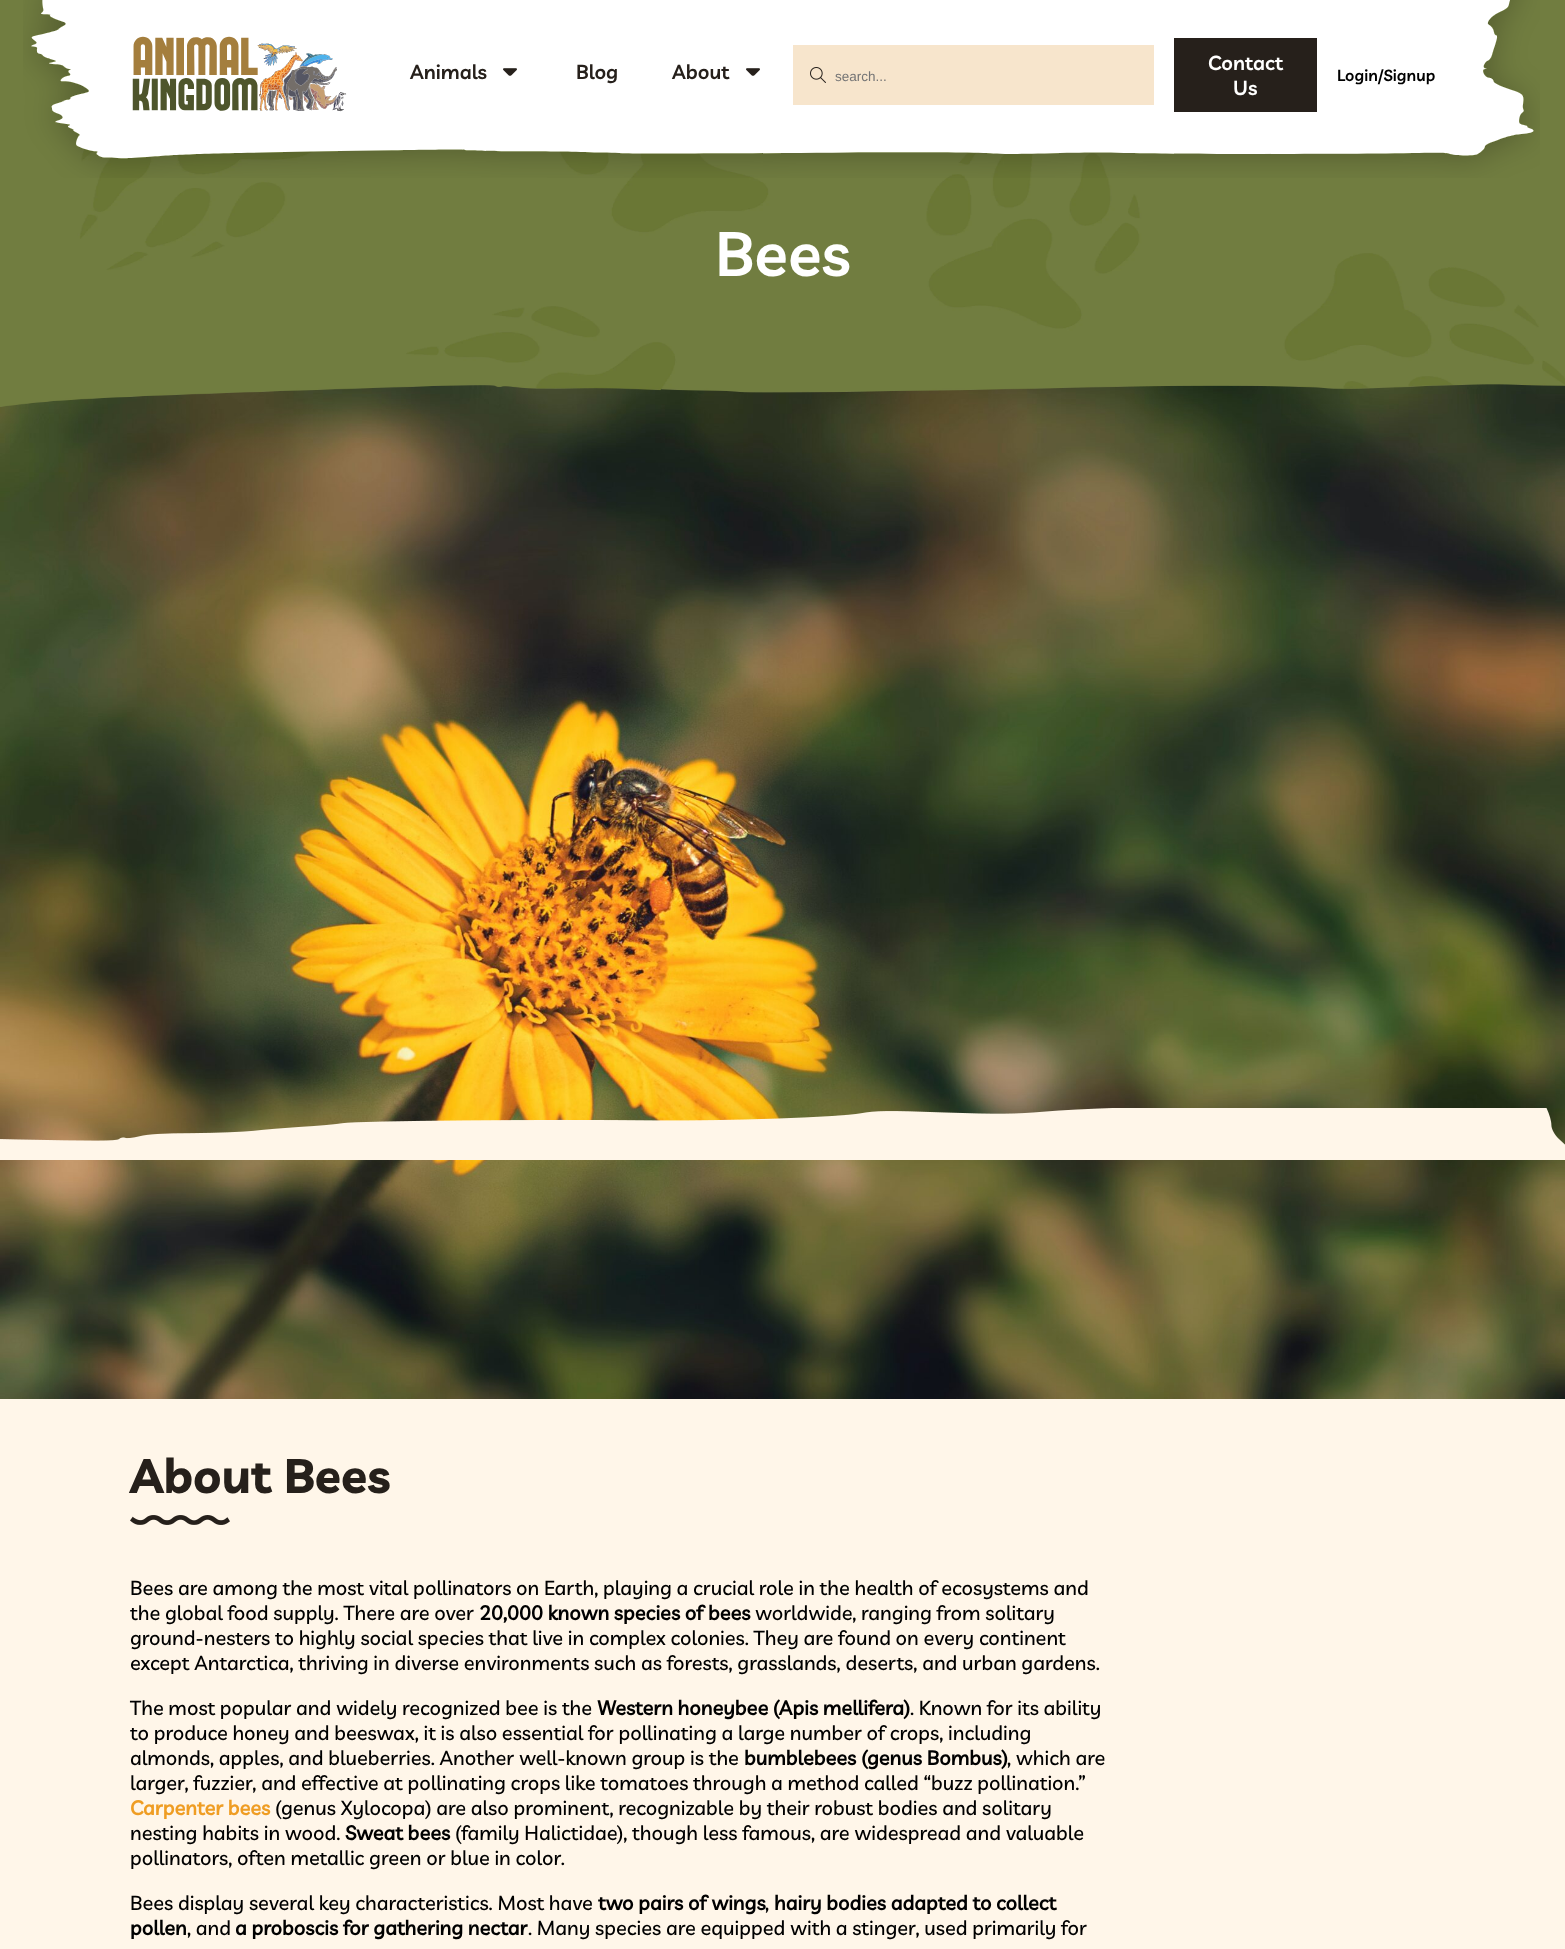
<svg xmlns="http://www.w3.org/2000/svg" width="1565" height="1949" viewBox="0 0 1565 1949">
  <rect width="100%" height="100%" fill="rgb(255,246,233)"/>
  <image x="0" y="384" width="1565" height="1015" href="pic6.png"/>
  <image x="0" y="0" width="1565" height="407" href="pic5.png"/>
  <image x="23" y="0" width="1517" height="178" href="pic1.png"/>
  <image x="132" y="36" width="215" height="76" href="pic2.png"/>
  <text x="410" y="79" font-family="Livvic" font-size="20" font-weight="600" fill="rgb(38,32,27)">Animals</text>
  <image x="503" y="68" width="14" height="8" href="pic3.png"/>
  <g font-family="Livvic" font-size="20" font-weight="600" fill="rgb(38,32,27)">
    <text x="576" y="79">Blog</text>
    <text x="672" y="79">About</text>
  </g>
  <image x="746" y="68" width="14" height="8" href="pic3.png"/>
  <rect x="793" y="45" width="361" height="60" fill="rgb(247,229,204)"/>
  <image x="810" y="67" width="16" height="16" href="pic4.png"/>
  <text x="835" y="81" font-family="Liberation Sans" font-size="13.5" fill="rgb(117,117,117)">search...</text>
  <rect x="1174" y="38" width="143" height="74" fill="rgb(38,32,27)"/>
  <g font-family="Livvic" font-size="20" font-weight="600" fill="rgb(255,255,255)">
    <text x="1208" y="70">Contact</text>
    <text x="1233" y="95">Us</text>
  </g>
  <text x="1337" y="81" font-family="Livvic" font-size="16" font-weight="600" fill="rgb(0,0,0)">Login/Signup</text>
  <text x="715" y="276" font-family="Livvic" font-size="62" font-weight="600" fill="rgb(255,255,255)">Bees</text>
  <image x="0" y="1108" width="1565" height="52" href="pic7.png"/>
  <text x="130" y="1493" font-family="'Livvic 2'" font-size="48" font-weight="bold" fill="rgb(38,32,27)">About Bees</text>
  <image x="130" y="1515" width="100" height="10" href="pic8.png"/>
  <g font-family="Livvic" font-size="20" font-weight="500" fill="rgb(0,0,0)">
    <text>
      <tspan x="130" y="1595">Bees are among the most vital pollinators on Earth, playing a crucial role in the health of ecosystems and</tspan>
      <tspan x="130" y="1620">the global food supply. There are over</tspan>
    </text>
  </g>
  <text x="479" y="1620" font-family="Livvic" font-size="20" font-weight="bold" fill="rgb(0,0,0)">20,000 known species of bees</text>
  <g font-family="Livvic" font-size="20" font-weight="500" fill="rgb(0,0,0)">
    <text x="755" y="1620">worldwide, ranging from solitary</text>
    <text>
      <tspan x="130" y="1645">ground-nesters to highly social species that live in complex colonies. They are found on every continent</tspan>
      <tspan x="130" y="1670">except Antarctica, thriving in diverse environments such as forests, grasslands, deserts, and urban gardens.</tspan>
    </text>
    <text x="130" y="1715">The most popular and widely recognized bee is the</text>
  </g>
  <text x="597" y="1715" font-family="Livvic" font-size="20" font-weight="bold" fill="rgb(0,0,0)">Western honeybee (Apis mellifera)</text>
  <g font-family="Livvic" font-size="20" font-weight="500" fill="rgb(0,0,0)">
    <text x="910" y="1715">. Known for its ability</text>
    <text>
      <tspan x="130" y="1740">to produce honey and beeswax, it is also essential for pollinating a large number of crops, including</tspan>
      <tspan x="130" y="1765">almonds, apples, and blueberries. Another well-known group is the</tspan>
    </text>
  </g>
  <text x="744" y="1765" font-family="Livvic" font-size="20" font-weight="bold" fill="rgb(0,0,0)">bumblebees (genus Bombus)</text>
  <g font-family="Livvic" font-size="20" font-weight="500" fill="rgb(0,0,0)">
    <text x="1007" y="1765">, which are</text>
    <text x="130" y="1790">larger, fuzzier, and effective at pollinating crops like tomatoes through a method called “buzz pollination.”</text>
  </g>
  <text x="130" y="1815" font-family="Livvic" font-size="20" font-weight="bold" fill="rgb(239,157,35)">Carpenter bees</text>
  <g font-family="Livvic" font-size="20" font-weight="500" fill="rgb(0,0,0)">
    <text x="275" y="1815">(genus Xylocopa) are also prominent, recognizable by their robust bodies and solitary</text>
    <text x="130" y="1840">nesting habits in wood.</text>
  </g>
  <text x="345" y="1840" font-family="Livvic" font-size="20" font-weight="bold" fill="rgb(0,0,0)">Sweat bees</text>
  <g font-family="Livvic" font-size="20" font-weight="500" fill="rgb(0,0,0)">
    <text x="455" y="1840">(family Halictidae), though less famous, are widespread and valuable</text>
    <text x="130" y="1865">pollinators, often metallic green or blue in color.</text>
    <text x="130" y="1910">Bees display several key characteristics. Most have</text>
  </g>
  <text x="598" y="1910" font-family="Livvic" font-size="20" font-weight="bold" fill="rgb(0,0,0)">two pairs of wings</text>
  <text x="765" y="1910" font-family="Livvic" font-size="20" font-weight="500" fill="rgb(0,0,0)">,</text>
  <g font-family="Livvic" font-size="20" font-weight="bold" fill="rgb(0,0,0)">
    <text x="774" y="1910">hairy bodies adapted to collect</text>
    <text x="130" y="1935">pollen</text>
  </g>
  <text x="187" y="1935" font-family="Livvic" font-size="20" font-weight="500" fill="rgb(0,0,0)">, and</text>
  <text x="235" y="1935" font-family="Livvic" font-size="20" font-weight="bold" fill="rgb(0,0,0)">a proboscis for gathering nectar</text>
  <text x="528" y="1935" font-family="Livvic" font-size="20" font-weight="500" fill="rgb(0,0,0)">. Many species are equipped with a stinger, used primarily for</text>
</svg>
